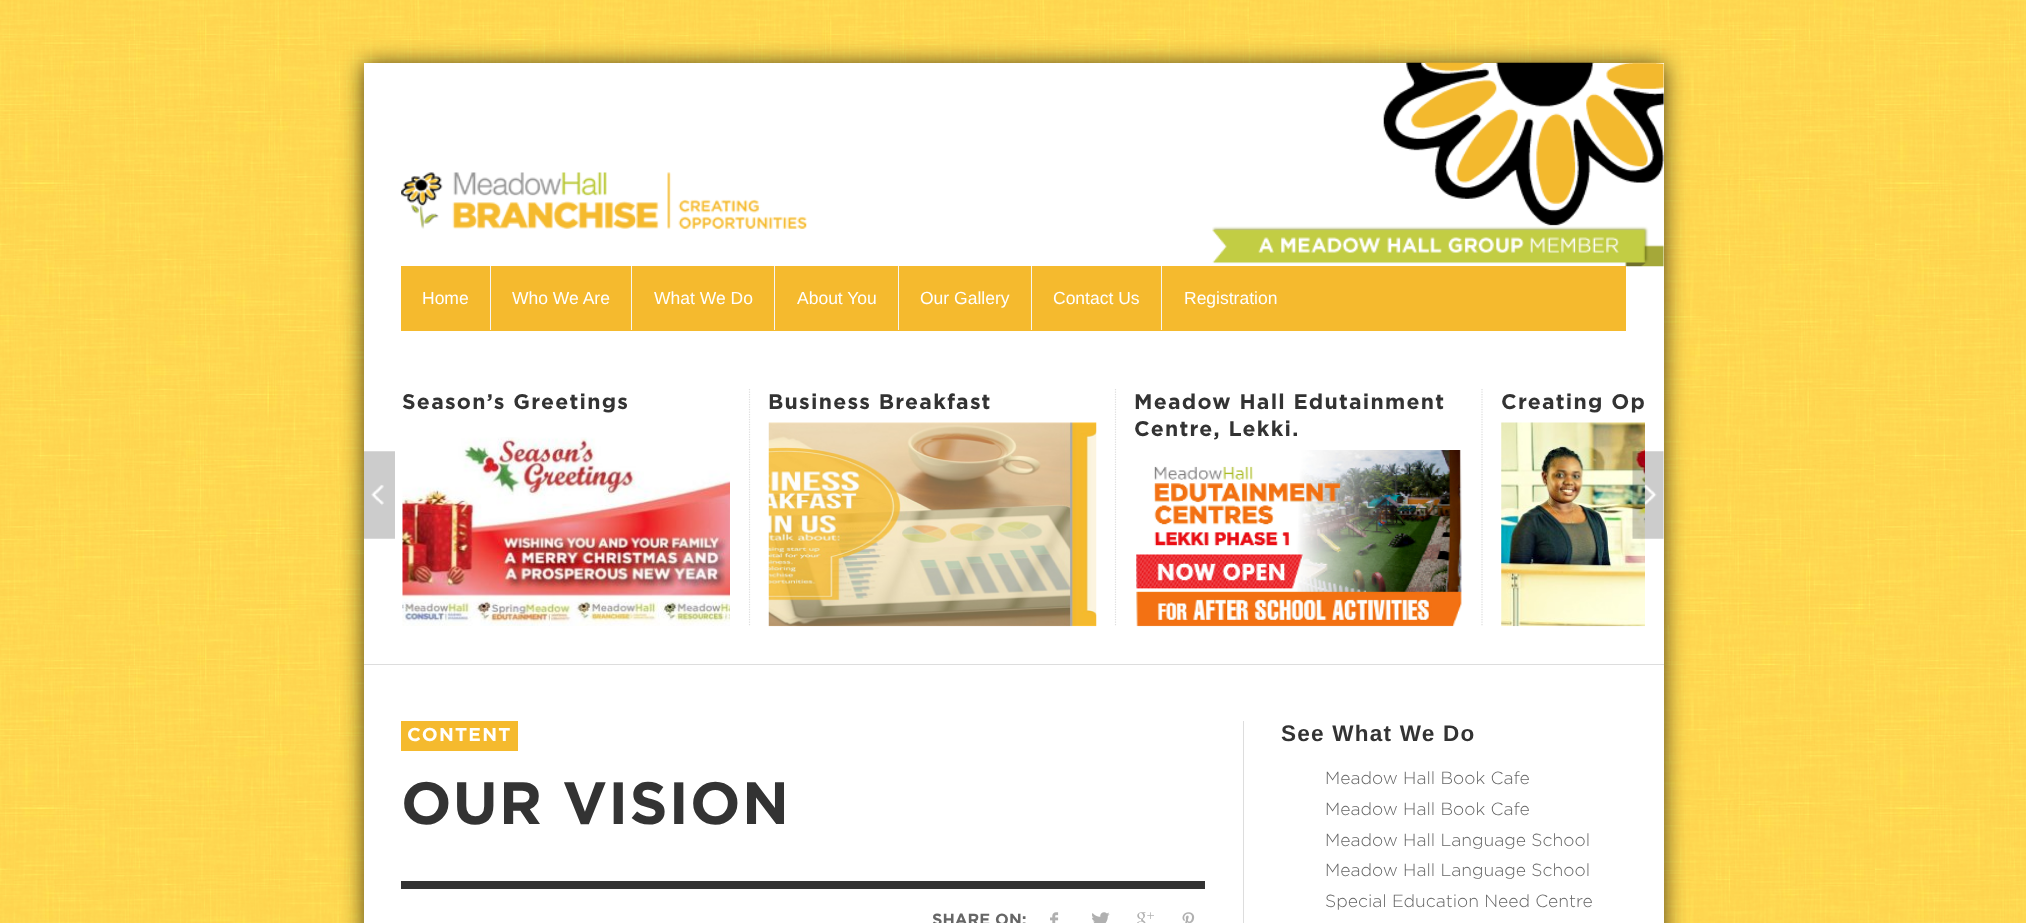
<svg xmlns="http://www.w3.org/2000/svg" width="2026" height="923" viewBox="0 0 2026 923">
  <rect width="100%" height="100%" fill="rgb(255,255,255)"/>
  <image x="0" y="0" width="2026" height="923" href="pic1.png"/>
  <rect x="364" y="64" width="1300" height="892" fill="rgba(0,0,0,0.7)" filter="blur(11px)"/>
  <rect x="364" y="63" width="1300" height="860" fill="rgb(255,255,255)"/>
  <image x="1212" y="62" width="452" height="205" href="pic2.png"/>
  <image x="401" y="172" width="406" height="57" href="pic3.png"/>
  <rect x="401" y="266" width="1225" height="65" fill="rgb(245,186,46)"/>
  <text x="422" y="304" font-family="Liberation Sans" font-size="17.5" fill="rgb(255,255,255)">Home</text>
  <rect x="490" y="266" width="1" height="64" fill="rgb(246,246,246)"/>
  <text x="512" y="304" font-family="Liberation Sans" font-size="17.5" fill="rgb(255,255,255)">Who We Are</text>
  <rect x="631" y="266" width="1" height="64" fill="rgb(246,246,246)"/>
  <text x="654" y="304" font-family="Liberation Sans" font-size="17.5" fill="rgb(255,255,255)">What We Do</text>
  <rect x="774" y="266" width="1" height="64" fill="rgb(246,246,246)"/>
  <text x="797" y="304" font-family="Liberation Sans" font-size="17.5" fill="rgb(255,255,255)">About You</text>
  <rect x="898" y="266" width="1" height="64" fill="rgb(246,246,246)"/>
  <text x="920" y="304" font-family="Liberation Sans" font-size="17.5" fill="rgb(255,255,255)">Our Gallery</text>
  <rect x="1031" y="266" width="1" height="64" fill="rgb(246,246,246)"/>
  <text x="1053" y="304" font-family="Liberation Sans" font-size="17.5" fill="rgb(255,255,255)">Contact Us</text>
  <rect x="1161" y="266" width="1" height="64" fill="rgb(246,246,246)"/>
  <text x="1184" y="304" font-family="Liberation Sans" font-size="17.5" fill="rgb(255,255,255)">Registration</text>
  <rect x="364" y="664" width="1300" height="1" fill="rgb(221,221,221)"/>
  <text x="402" y="409" font-family="Gotham" font-size="21.25" font-weight="bold" letter-spacing="1.25" fill="rgb(51,51,51)">Season’s Greetings</text>
  <image x="402" y="437" width="328" height="189" href="pic4.png"/>
  <path d="M749.5 389V626" fill="none" stroke="rgb(221,221,221)" stroke-width="1.2" stroke-dasharray="1.25 1.25"/>
  <text x="768" y="409" font-family="Gotham" font-size="21.25" font-weight="bold" letter-spacing="1.25" fill="rgb(51,51,51)">Business Breakfast</text>
  <image x="768" y="422" width="329" height="205" href="pic5.png"/>
  <path d="M1115.5 389V626" fill="none" stroke="rgb(221,221,221)" stroke-width="1.2" stroke-dasharray="1.25 1.25"/>
  <g font-family="Gotham" font-size="21.25" font-weight="bold" letter-spacing="1.25" fill="rgb(51,51,51)">
    <text>
      <tspan x="1134" y="409">Meadow Hall Edutainment</tspan>
      <tspan x="1134" y="436">Centre, Lekki.</tspan>
    </text>
  </g>
  <image x="1136" y="450" width="326" height="177" href="pic6.png"/>
  <path d="M1482 389V626" fill="none" stroke="rgb(221,221,221)" stroke-width="1.2" stroke-dasharray="1.25 1.25"/>
  <text x="1501" y="409" font-family="Gotham" font-size="21.25" font-weight="bold" letter-spacing="1.25" fill="rgb(51,51,51)">Creating Op</text>
  <image x="1501" y="422" width="144" height="205" href="pic7.png"/>
  <image x="364" y="451" width="31" height="88" href="pic8.png"/>
  <image x="1632" y="451" width="32" height="88" href="pic9.png"/>
  <rect x="401" y="721" width="117" height="30" fill="rgb(245,186,46)"/>
  <text x="407" y="741" font-family="Gotham" font-size="18.75" font-weight="bold" letter-spacing="1.25" fill="rgb(255,255,255)">CONTENT</text>
  <text x="401" y="824" font-family="Gotham" font-size="59.5" font-weight="bold" letter-spacing="1.25" fill="rgb(51,51,51)">OUR VISION</text>
  <rect x="401" y="881" width="804" height="8" fill="rgb(51,51,51)"/>
  <text x="932" y="925" font-family="Gotham" font-size="16.25" font-weight="bold" fill="rgb(102,102,102)">SHARE ON:</text>
  <image x="1050" y="912" width="9" height="11" href="pic10.png"/>
  <image x="1092" y="912" width="18" height="11" href="pic11.png"/>
  <image x="1137" y="912" width="17" height="11" href="pic12.png"/>
  <image x="1182" y="912" width="13" height="11" href="pic13.png"/>
  <rect x="1243" y="721" width="1" height="202" fill="rgb(221,221,221)"/>
  <text x="1281" y="741" font-family="Liberation Sans" font-size="22.5" font-weight="bold" letter-spacing="1.25" fill="rgb(51,51,51)">See What We Do</text>
  <g font-family="Gotham" font-size="17.5" font-weight="300" fill="rgb(102,102,102)">
    <text>
      <tspan x="1325" y="784">Meadow Hall Book Cafe</tspan>
      <tspan x="1325" y="815">Meadow Hall Book Cafe</tspan>
      <tspan x="1325" y="846">Meadow Hall Language School</tspan>
      <tspan x="1325" y="876">Meadow Hall Language School</tspan>
      <tspan x="1325" y="907">Special Education Need Centre</tspan>
    </text>
  </g>
</svg>
